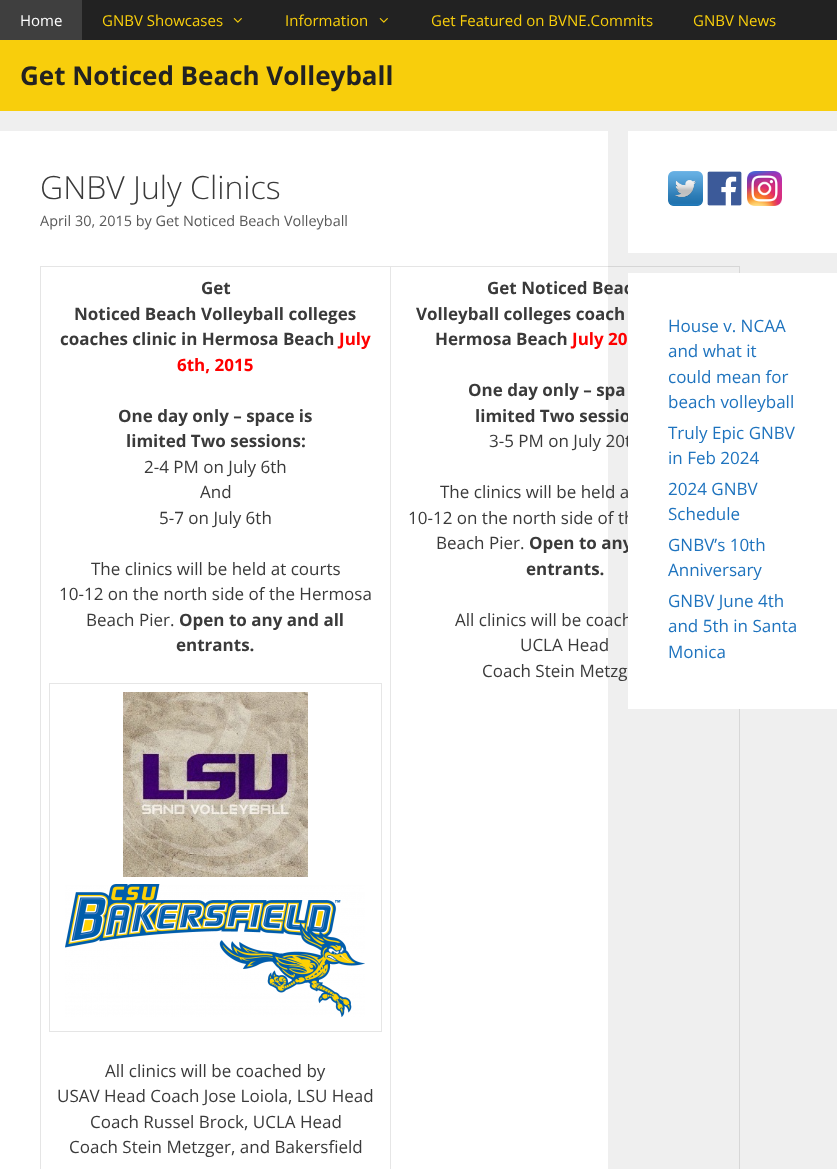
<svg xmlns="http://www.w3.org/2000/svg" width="837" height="1169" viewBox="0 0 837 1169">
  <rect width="100%" height="100%" fill="rgb(239,239,239)"/>
  <rect x="82" y="0" width="755" height="40" fill="rgb(34,34,34)"/>
  <rect x="0" y="0" width="82" height="40" fill="rgb(63,63,63)"/>
  <text x="20" y="26" font-family="Open Sans" font-size="15" fill="rgb(255,255,255)">Home</text>
  <text x="102" y="26" font-family="Open Sans" font-size="15" fill="rgb(248,206,12)">GNBV Showcases</text>
  <image x="233" y="18" width="9" height="5" href="pic1.png"/>
  <text x="285" y="26" font-family="Open Sans" font-size="15" fill="rgb(248,206,12)">Information</text>
  <image x="379" y="18" width="9" height="5" href="pic1.png"/>
  <g font-family="Open Sans" font-size="15" fill="rgb(248,206,12)">
    <text x="431" y="26">Get Featured on BVNE.Commits</text>
    <text x="693" y="26">GNBV News</text>
  </g>
  <rect x="0" y="40" width="837" height="71" fill="rgb(248,206,12)"/>
  <text x="20" y="85" font-family="Open Sans" font-size="26" font-weight="bold" fill="rgb(34,34,34)">Get Noticed Beach Volleyball</text>
  <rect x="0" y="131" width="608" height="1038" fill="rgb(255,255,255)"/>
  <text x="40" y="199" font-family="Open Sans" font-size="32" font-weight="300" fill="rgb(58,58,58)">GNBV July Clinics</text>
  <text x="40" y="226" font-family="Open Sans" font-size="14.45" fill="rgb(89,89,89)">April 30, 2015 by Get Noticed Beach Volleyball</text>
  <path d="M40 266H740V267H41Z" fill="rgba(0,0,0,0.1)"/>
  <path d="M40 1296V266L41 267V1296Z" fill="rgba(0,0,0,0.1)"/>
  <path d="M391 267V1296L390 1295V267Z" fill="rgb(230,230,230)"/>
  <g font-family="Open Sans" font-size="17" font-weight="bold" fill="rgb(58,58,58)">
    <text x="201" y="294">Get</text>
    <text x="74" y="320">Noticed Beach Volleyball colleges</text>
    <text x="60" y="345">coaches clinic in Hermosa Beach</text>
  </g>
  <g font-family="Open Sans" font-size="17" font-weight="bold" fill="rgb(255,0,0)">
    <text x="339" y="345">July</text>
    <text x="177" y="371">6th, 2015</text>
  </g>
  <g font-family="Open Sans" font-size="17" font-weight="bold" fill="rgb(58,58,58)">
    <text x="118" y="422">One day only – space is</text>
    <text x="126" y="447">limited Two sessions:</text>
  </g>
  <g font-family="Open Sans" font-size="17" fill="rgb(58,58,58)">
    <text x="144" y="473">2-4 PM on July 6th</text>
    <text x="200" y="498">And</text>
    <text x="159" y="524">5-7 on July 6th</text>
    <text x="91" y="575">The clinics will be held at courts</text>
    <text x="59" y="600">10-12 on the north side of the Hermosa</text>
    <text x="86" y="626">Beach Pier.</text>
  </g>
  <g font-family="Open Sans" font-size="17" font-weight="bold" fill="rgb(58,58,58)">
    <text x="179" y="626">Open to any and all</text>
    <text x="176" y="651">entrants.</text>
  </g>
  <path d="M49 683H382V684H50Z" fill="rgb(230,230,230)"/>
  <path d="M49 1032V683L50 684V1032Z" fill="rgba(0,0,0,0.1)"/>
  <path d="M382 684V1032L381 1031V684Z" fill="rgb(230,230,230)"/>
  <path d="M382 1032H50V1031H381Z" fill="rgba(0,0,0,0.1)"/>
  <image x="123" y="692" width="185" height="185" href="pic2.png"/>
  <image x="65" y="884" width="300" height="133" href="pic3.png"/>
  <g font-family="Open Sans" font-size="17" fill="rgb(58,58,58)">
    <text x="105" y="1077">All clinics will be coached by</text>
    <text x="57" y="1102">USAV Head Coach Jose Loiola, LSU Head</text>
    <text x="90" y="1128">Coach Russel Brock, UCLA Head</text>
    <text x="69" y="1153">Coach Stein Metzger, and Bakersfield</text>
  </g>
  <path d="M740 267V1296L739 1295V267Z" fill="rgb(215,215,215)"/>
  <g font-family="Open Sans" font-size="17" font-weight="bold" fill="rgb(58,58,58)">
    <text x="487" y="294">Get Noticed Beac</text>
    <text x="416" y="320">Volleyball colleges coach</text>
    <text x="435" y="345">Hermosa Beach</text>
  </g>
  <text x="572" y="345" font-family="Open Sans" font-size="17" font-weight="bold" fill="rgb(255,0,0)">July 20</text>
  <g font-family="Open Sans" font-size="17" font-weight="bold" fill="rgb(58,58,58)">
    <text x="468" y="396">One day only – spa</text>
    <text x="475" y="422">limited Two sessio</text>
  </g>
  <g font-family="Open Sans" font-size="17" fill="rgb(58,58,58)">
    <text x="489" y="447">3-5 PM on July 20t</text>
    <text x="440" y="498">The clinics will be held a</text>
    <text x="408" y="524">10-12 on the north side of th</text>
    <text x="436" y="549">Beach Pier.</text>
  </g>
  <g font-family="Open Sans" font-size="17" font-weight="bold" fill="rgb(58,58,58)">
    <text x="529" y="549">Open to any</text>
    <text x="526" y="575">entrants.</text>
  </g>
  <g font-family="Open Sans" font-size="17" fill="rgb(58,58,58)">
    <text x="455" y="626">All clinics will be coach</text>
    <text x="520" y="651">UCLA Head</text>
    <text x="482" y="677">Coach Stein Metzg</text>
  </g>
  <rect x="628" y="131" width="209" height="122" fill="rgb(255,255,255)"/>
  <image x="668" y="171" width="35" height="35" href="pic4.png"/>
  <image x="707" y="171" width="35" height="35" href="pic5.png"/>
  <image x="747" y="171" width="35" height="35" href="pic6.png"/>
  <rect x="628" y="273" width="209" height="436" fill="rgb(255,255,255)"/>
  <g font-family="Open Sans" font-size="17" fill="rgb(30,115,190)">
    <text>
      <tspan x="668" y="332">House v. NCAA</tspan>
      <tspan x="668" y="357">and what it</tspan>
      <tspan x="668" y="383">could mean for</tspan>
      <tspan x="668" y="408">beach volleyball</tspan>
      <tspan x="668" y="439">Truly Epic GNBV</tspan>
      <tspan x="668" y="464">in Feb 2024</tspan>
      <tspan x="668" y="495">2024 GNBV</tspan>
      <tspan x="668" y="520">Schedule</tspan>
      <tspan x="668" y="551">GNBV’s 10th</tspan>
      <tspan x="668" y="576">Anniversary</tspan>
      <tspan x="668" y="607">GNBV June 4th</tspan>
      <tspan x="668" y="632">and 5th in Santa</tspan>
      <tspan x="668" y="658">Monica</tspan>
    </text>
  </g>
</svg>
